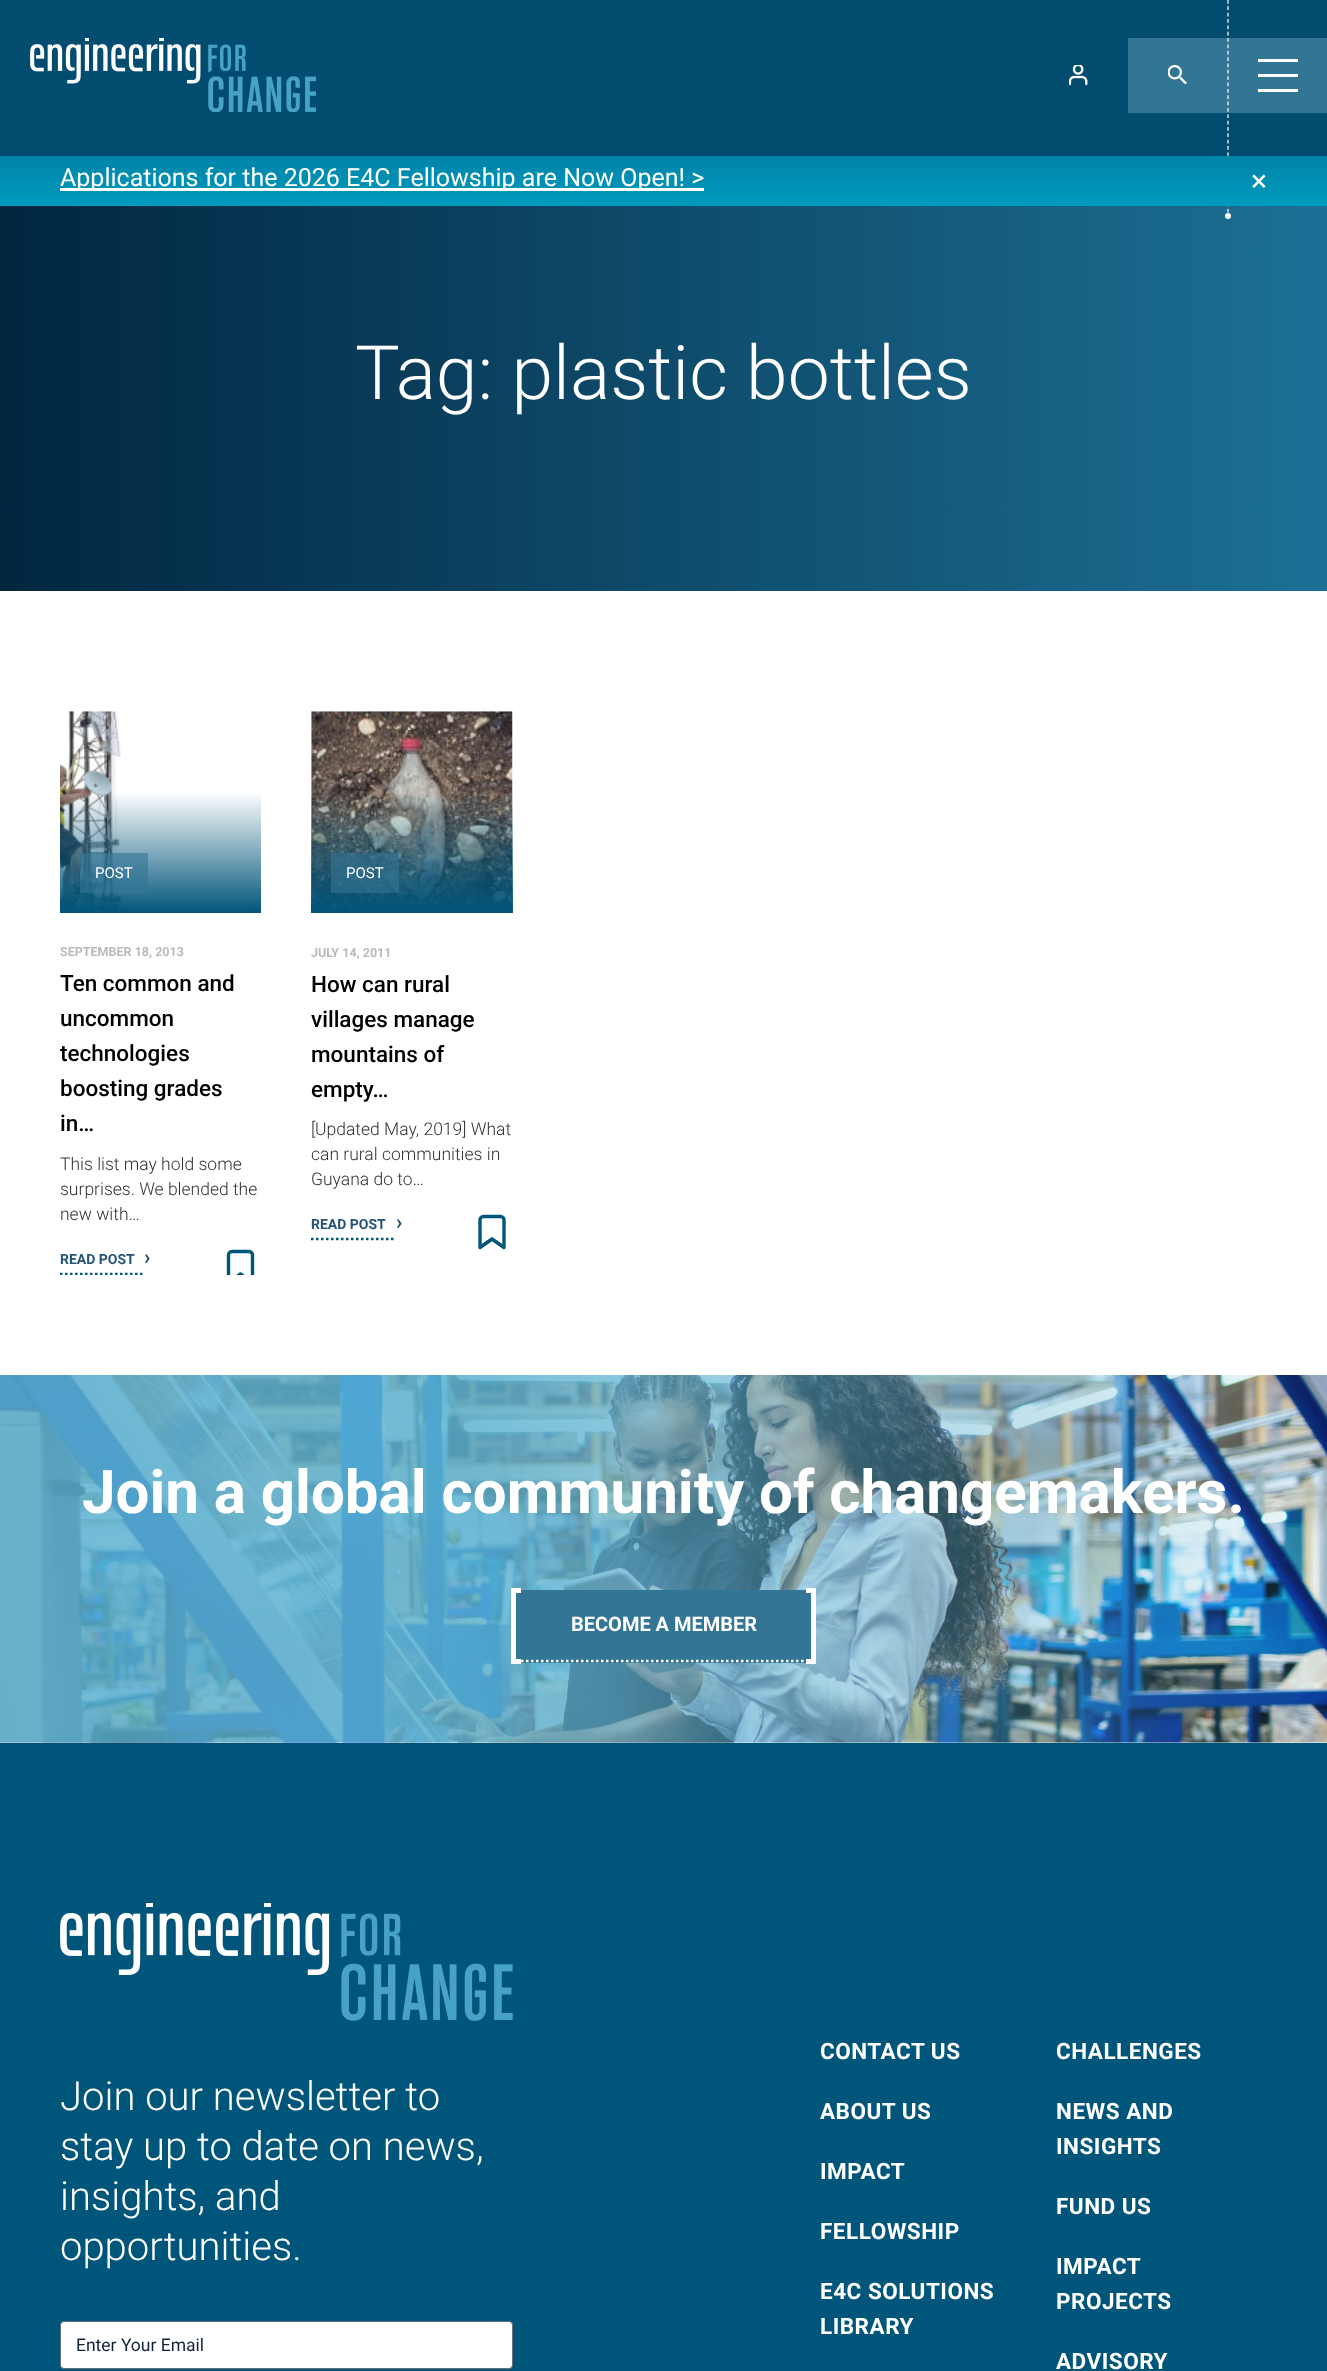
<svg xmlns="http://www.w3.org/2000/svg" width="1327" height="2371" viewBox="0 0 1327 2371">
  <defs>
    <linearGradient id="g1" gradientUnits="userSpaceOnUse" x1="0" y1="374" x2="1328" y2="374"><stop offset="0" stop-color="rgb(1,38,64)"/><stop offset="1" stop-color="rgb(28,112,149)"/></linearGradient>
    <linearGradient id="g2" gradientUnits="userSpaceOnUse" x1="664" y1="156" x2="664" y2="206"><stop offset="0" stop-color="rgb(0,132,168)"/><stop offset="1" stop-color="rgb(0,155,190)"/></linearGradient>
    <linearGradient id="g3" gradientUnits="userSpaceOnUse" x1="161" y1="711" x2="161" y2="913"><stop offset="0.4" stop-color="rgb(0,85,123)" stop-opacity="0"/><stop offset="1" stop-color="rgb(0,85,123)"/></linearGradient>
    <clipPath id="clip1"><rect x="60" y="711" width="201" height="564"/></clipPath>
    <clipPath id="clip2"><rect x="220" y="1246" width="41" height="29"/></clipPath>
    <linearGradient id="g4" gradientUnits="userSpaceOnUse" x1="412" y1="711" x2="412" y2="913"><stop offset="0.4" stop-color="rgb(0,85,123)" stop-opacity="0"/><stop offset="1" stop-color="rgb(0,85,123)"/></linearGradient>
  </defs>
  <rect width="100%" height="100%" fill="rgb(0,85,123)"/>
  <rect x="0" y="591" width="1327" height="1152" fill="rgb(255,255,255)"/>
  <rect x="0" y="206" width="1327" height="385" fill="url(#g1)"/>
  <path d="M1228 0V212.5" fill="none" stroke="rgb(255,255,255)" stroke-width="1.2" stroke-dasharray="3.75 2.58"/>
  <rect x="0" y="0" width="1327" height="156" fill="rgba(2,78,111,0.98)"/>
  <rect x="1128" y="38" width="199" height="75" fill="rgb(51,117,149)"/>
  <path d="M1228 0V156" fill="none" stroke="rgb(255,255,255)" stroke-width="1.2" stroke-dasharray="3.75 2.6"/>
  <rect x="1258" y="59" width="40" height="3" fill="rgb(255,255,255)"/>
  <rect x="1258" y="74" width="40" height="3" fill="rgb(255,255,255)"/>
  <rect x="1258" y="89" width="40" height="3" fill="rgb(255,255,255)"/>
  <image x="30" y="38" width="286" height="74" href="pic1.png"/>
  <image x="1069" y="65" width="19" height="21" href="pic2.png"/>
  <image x="1168" y="65" width="19" height="20" href="pic3.png"/>
  <rect x="0" y="156" width="1327" height="50" fill="url(#g2)"/>
  <rect x="60" y="188" width="644" height="3" fill="rgb(255,255,255)"/>
  <text x="60" y="186" font-family="Roboto" font-size="25" fill="rgb(255,255,255)">Applications for the 2026 E4C Fellowship are Now Open! &gt;</text>
  <text x="1251" y="191" font-family="Roboto" font-size="30" fill="rgb(255,255,255)">×</text>
  <circle cx="1228" cy="216" r="3" fill="rgb(255,255,255)"/>
  <text x="355" y="399" font-family="Roboto" font-size="75" font-weight="300" fill="rgb(255,255,255)">Tag: plastic bottles</text>
  <image x="60" y="711" width="64" height="201" href="pic4.png"/>
  <rect x="60" y="794" width="201" height="119" fill="url(#g3)"/>
  <rect x="80" y="853" width="68" height="40" fill="rgba(51,117,149,0.6)"/>
  <text x="95" y="878" font-family="Roboto" font-size="15" fill="rgb(255,255,255)">POST</text>
  <text x="60" y="956" font-family="Roboto" font-size="12.5" font-weight="bold" fill="rgb(186,186,186)">SEPTEMBER 18, 2013</text>
  <g font-family="Roboto" font-size="22.5" font-weight="500" fill="rgb(0,0,0)">
    <text>
      <tspan x="60" y="991">Ten common and</tspan>
      <tspan x="60" y="1026">uncommon</tspan>
      <tspan x="60" y="1061">technologies</tspan>
      <tspan x="60" y="1096">boosting grades</tspan>
      <tspan x="60" y="1131">in…</tspan>
    </text>
  </g>
  <g font-family="Roboto" font-size="17.5" font-weight="300" fill="rgb(51,51,51)">
    <text>
      <tspan x="60" y="1170">This list may hold some</tspan>
      <tspan x="60" y="1195">surprises. We blended the</tspan>
      <tspan x="60" y="1220">new with…</tspan>
    </text>
  </g>
  <text x="60" y="1264" font-family="Roboto" font-size="14" font-weight="bold" fill="rgb(36,84,120)">READ POST</text>
  <text x="144" y="1264" font-family="Roboto" font-size="21" font-weight="bold" fill="rgb(36,84,120)">›</text>
  <g clip-path="url(#clip1)">
    <path d="M60 1274H144" fill="none" stroke="rgb(0,85,123)" stroke-width="2.5" stroke-dasharray="2.5 2.5"/>
  </g>
  <g clip-path="url(#clip2)">
    <path d="M252.5 1282.5L240.5 1274L228.5 1282.5V1255C228.5 1253 230 1251.5 232 1251.5H249C251 1251.5 252.5 1253 252.5 1255Z" fill="none" stroke="rgb(0,85,123)" stroke-width="3.4" stroke-linecap="round" stroke-linejoin="round"/>
  </g>
  <image x="311" y="711" width="202" height="201" href="pic5.png"/>
  <rect x="311" y="794" width="202" height="119" fill="url(#g4)"/>
  <rect x="331" y="853" width="68" height="40" fill="rgba(51,117,149,0.6)"/>
  <text x="346" y="878" font-family="Roboto" font-size="15" fill="rgb(255,255,255)">POST</text>
  <text x="311" y="957" font-family="Roboto" font-size="12.5" font-weight="bold" fill="rgb(186,186,186)">JULY 14, 2011</text>
  <g font-family="Roboto" font-size="22.5" font-weight="500" fill="rgb(0,0,0)">
    <text>
      <tspan x="311" y="992">How can rural</tspan>
      <tspan x="311" y="1027">villages manage</tspan>
      <tspan x="311" y="1062">mountains of</tspan>
      <tspan x="311" y="1097">empty…</tspan>
    </text>
  </g>
  <g font-family="Roboto" font-size="17.5" font-weight="300" fill="rgb(51,51,51)">
    <text>
      <tspan x="311" y="1135">[Updated May, 2019] What</tspan>
      <tspan x="311" y="1160">can rural communities in</tspan>
      <tspan x="311" y="1185">Guyana do to…</tspan>
    </text>
  </g>
  <text x="311" y="1229" font-family="Roboto" font-size="14" font-weight="bold" fill="rgb(36,84,120)">READ POST</text>
  <text x="396" y="1229" font-family="Roboto" font-size="21" font-weight="bold" fill="rgb(36,84,120)">›</text>
  <path d="M311 1239H396" fill="none" stroke="rgb(0,85,123)" stroke-width="2.5" stroke-dasharray="2.5 2.5"/>
  <path d="M504 1247.5L492 1239L480 1247.5V1220C480 1218 481.5 1216.5 483.5 1216.5H500.5C502.5 1216.5 504 1218 504 1220Z" fill="none" stroke="rgb(0,85,123)" stroke-width="3.4" stroke-linecap="round" stroke-linejoin="round"/>
  <image x="0" y="1375" width="1327" height="368" href="pic6.png"/>
  <text x="82" y="1513" font-family="Roboto" font-size="60" font-weight="bold" fill="rgb(255,255,255)">Join a global community of changemakers.</text>
  <rect x="516" y="1590" width="295" height="73" fill="rgb(51,117,149)"/>
  <path d="M511 1661H816" fill="none" stroke="rgb(255,255,255)" stroke-width="2.5" stroke-dasharray="2.5 2.5"/>
  <rect x="511" y="1588" width="10" height="5" fill="rgb(255,255,255)"/>
  <rect x="511" y="1659" width="10" height="5" fill="rgb(255,255,255)"/>
  <rect x="511" y="1588" width="5" height="76" fill="rgb(255,255,255)"/>
  <text x="571" y="1631" font-family="Roboto" font-size="20" font-weight="bold" fill="rgb(255,255,255)">BECOME A MEMBER</text>
  <rect x="806" y="1588" width="10" height="5" fill="rgb(255,255,255)"/>
  <rect x="811" y="1588" width="5" height="76" fill="rgb(255,255,255)"/>
  <rect x="806" y="1659" width="10" height="5" fill="rgb(255,255,255)"/>
  <image x="60" y="1903" width="453" height="118" href="pic7.png"/>
  <g font-family="Roboto" font-size="40" font-weight="300" fill="rgb(255,255,255)">
    <text>
      <tspan x="60" y="2110">Join our newsletter to</tspan>
      <tspan x="60" y="2160">stay up to date on news,</tspan>
      <tspan x="60" y="2210">insights, and</tspan>
      <tspan x="60" y="2260">opportunities.</tspan>
    </text>
  </g>
  <rect x="60.5" y="2321.5" width="452" height="47" rx="3.5" fill="rgb(255,255,255)" stroke="rgb(104,110,119)"/>
  <text x="76" y="2351" font-family="Roboto" font-size="17.5" fill="rgb(17,35,55)">Enter Your Email</text>
  <g font-family="Roboto" font-size="22.5" font-weight="bold" letter-spacing="0.5" fill="rgb(255,255,255)">
    <text x="820" y="2059">CONTACT US</text>
    <text x="1056" y="2059">CHALLENGES</text>
    <text x="820" y="2119">ABOUT US</text>
    <text>
      <tspan x="1056" y="2119">NEWS AND</tspan>
      <tspan x="1056" y="2154">INSIGHTS</tspan>
    </text>
    <text x="820" y="2179">IMPACT</text>
    <text x="1056" y="2214">FUND US</text>
    <text x="820" y="2239">FELLOWSHIP</text>
    <text>
      <tspan x="820" y="2299">E4C SOLUTIONS</tspan>
      <tspan x="820" y="2334">LIBRARY</tspan>
    </text>
    <text>
      <tspan x="1056" y="2274">IMPACT</tspan>
      <tspan x="1056" y="2309">PROJECTS</tspan>
    </text>
    <text x="1056" y="2369">ADVISORY</text>
  </g>
</svg>
